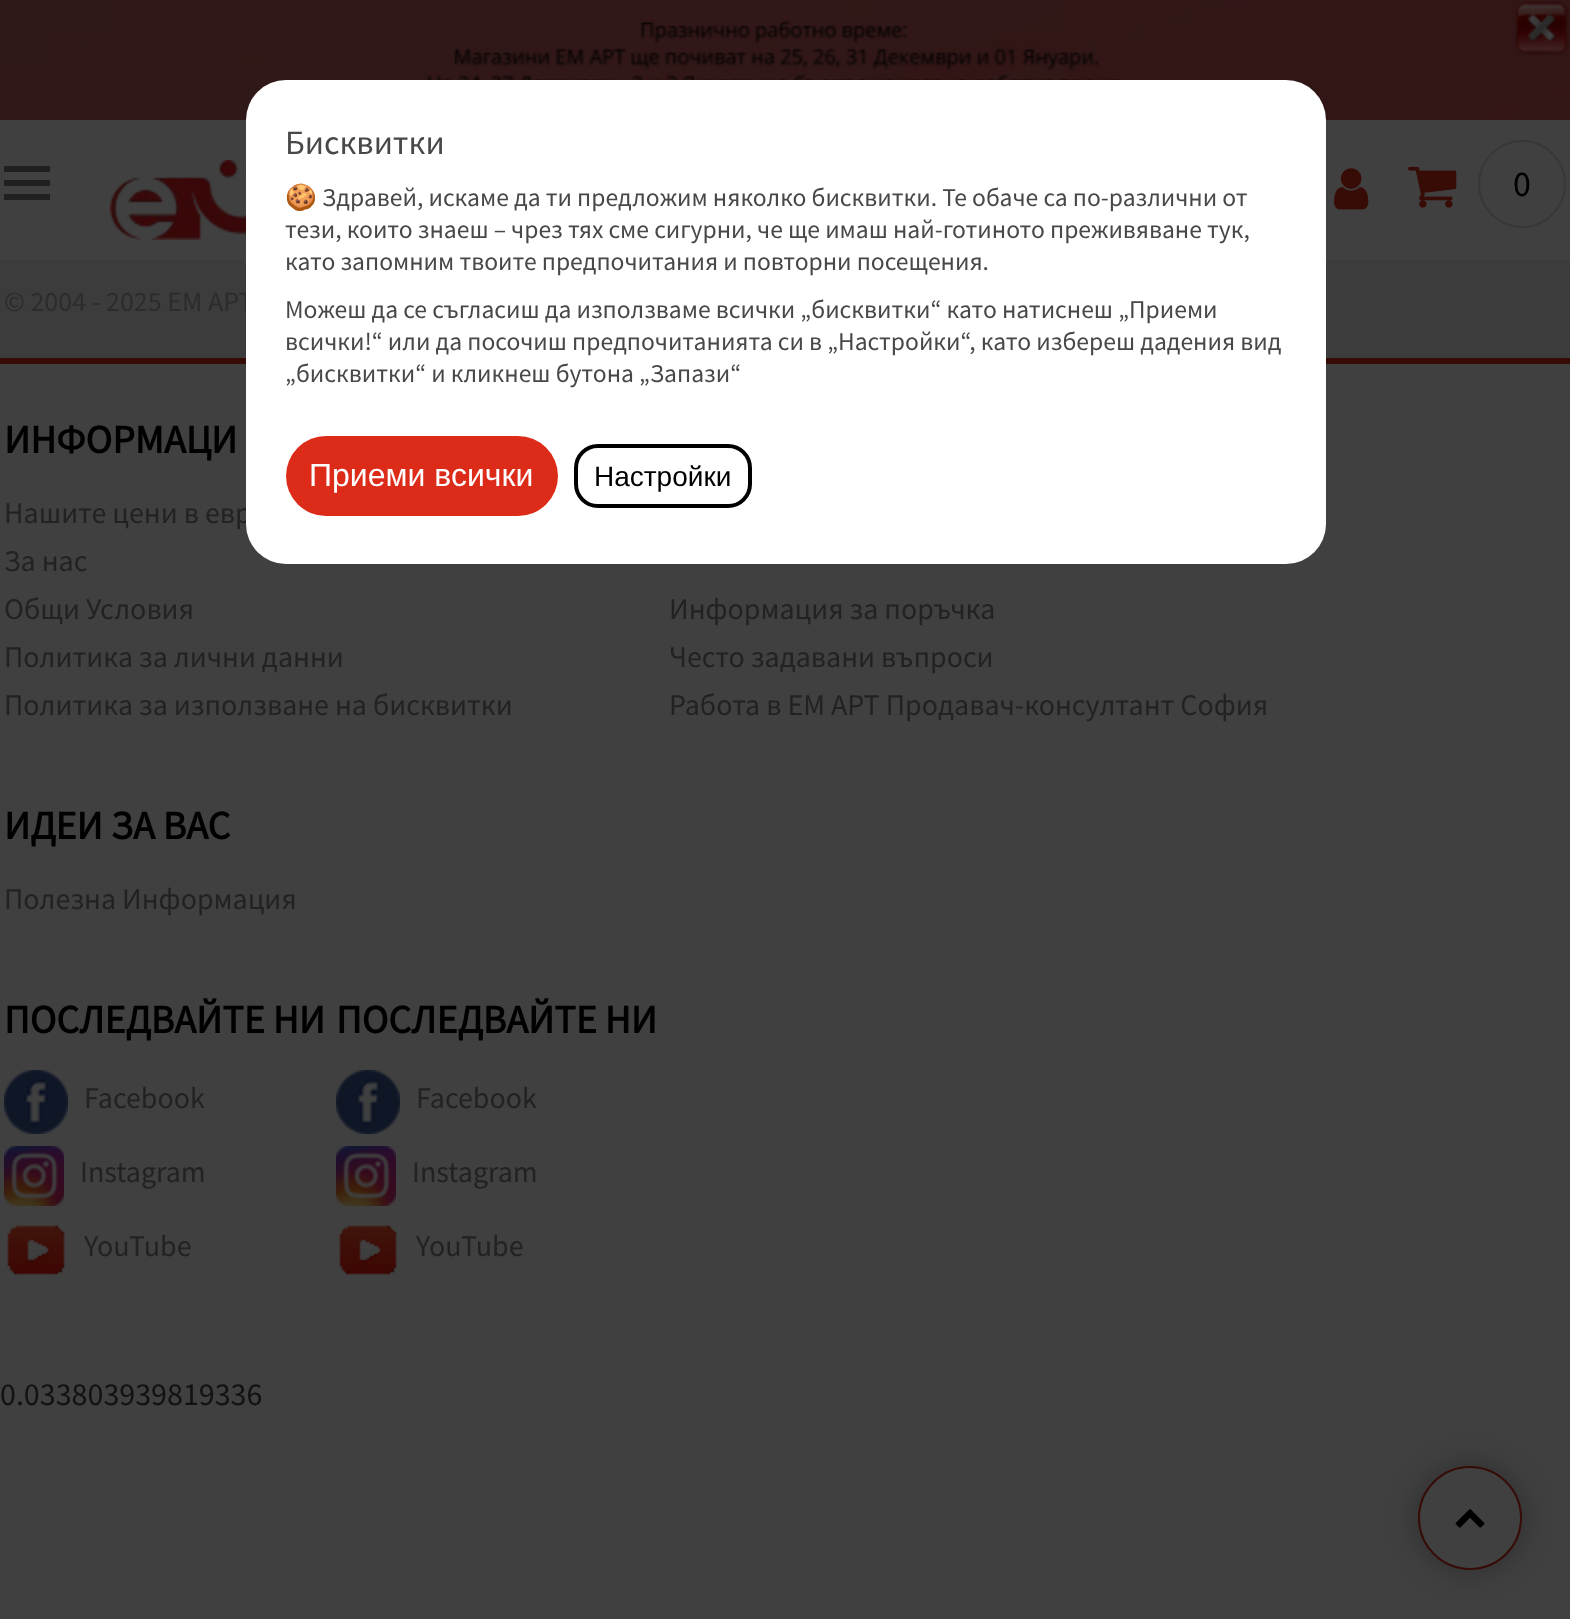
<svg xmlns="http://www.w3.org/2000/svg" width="1570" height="1619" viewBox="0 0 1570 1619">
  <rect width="100%" height="100%" fill="rgb(64,64,64)"/>
  <image x="0" y="0" width="1570" height="120" href="pic1.png"/>
  <rect x="0" y="260" width="1570" height="98" fill="rgb(61,60,60)"/>
  <rect x="0" y="358" width="1570" height="6" fill="rgb(55,11,6)"/>
  <text x="4" y="311" font-family="Source Sans Pro" font-size="28" fill="rgb(44,44,44)">© 2004 - 2025 ЕМ АРТ</text>
  <text x="4" y="523" font-family="Source Sans Pro" font-size="30" fill="rgb(34,34,34)">Нашите цени в евр</text>
  <rect x="246" y="80" width="1080" height="484" rx="40" fill="rgb(255,255,255)"/>
  <text x="285" y="154" font-family="Source Sans Pro" font-size="34" fill="rgb(72,72,72)">Бисквитки</text>
  <text x="285" y="206" font-family="Noto Color Emoji" font-size="25.6" fill="rgb(72,72,72)">🍪</text>
  <g font-family="Source Sans Pro" font-size="25.6" fill="rgb(72,72,72)">
    <text x="322" y="206">Здравей, искаме да ти предложим няколко бисквитки. Те обаче са по-различни от</text>
    <text>
      <tspan x="285" y="238">тези, които знаеш – чрез тях сме сигурни, че ще имаш най-готиното преживяване тук,</tspan>
      <tspan x="285" y="270">като запомним твоите предпочитания и повторни посещения.</tspan>
      <tspan x="285" y="318">Можеш да се съгласиш да използваме всички „бисквитки“ като натиснеш „Приеми</tspan>
      <tspan x="285" y="350">всички!“ или да посочиш предпочитанията си в „Настройки“, като избереш дадения вид</tspan>
      <tspan x="285" y="382">„бисквитки“ и кликнеш бутона „Запази“</tspan>
    </text>
  </g>
  <rect x="286" y="436" width="272" height="80" rx="40" fill="rgb(220,43,25)"/>
  <text x="309" y="486" font-family="Liberation Sans" font-size="32" fill="rgb(255,255,255)">Приеми всички</text>
  <rect x="576" y="446" width="174" height="60" rx="22" fill="none" stroke="rgb(0,0,0)" stroke-width="4"/>
  <text x="594" y="486" font-family="Liberation Sans" font-size="28" fill="rgb(0,0,0)">Настройки</text>
  <image x="427" y="20" width="693" height="60" href="pic2.png"/>
  <image x="1515" y="1" width="54" height="54" href="pic3.png"/>
  <rect x="4" y="180" width="46" height="6" fill="rgb(32,32,32)"/>
  <rect x="4" y="166" width="46" height="6" fill="rgb(32,32,32)"/>
  <rect x="4" y="194" width="46" height="6" fill="rgb(32,32,32)"/>
  <image x="110" y="160" width="136" height="80" href="pic4.png"/>
  <image x="1334" y="168" width="35" height="42" href="pic5.png"/>
  <image x="1408" y="166" width="49" height="42" href="pic6.png"/>
  <circle cx="1522" cy="184" r="43" fill="none" stroke="rgb(55,55,55)" stroke-width="2"/>
  <text x="1513" y="196" font-family="Source Sans Pro" font-size="36" fill="rgb(0,0,0)">0</text>
  <text x="4" y="453" font-family="Source Sans Pro" font-size="40" font-weight="bold" fill="rgb(0,0,0)">ИНФОРМАЦИ</text>
  <g font-family="Source Sans Pro" font-size="30" fill="rgb(34,34,34)">
    <text>
      <tspan x="4" y="571">За нас</tspan>
      <tspan x="4" y="619">Общи Условия</tspan>
      <tspan x="4" y="667">Политика за лични данни</tspan>
      <tspan x="4" y="715">Политика за използване на бисквитки</tspan>
    </text>
    <text>
      <tspan x="669" y="619">Информация за поръчка</tspan>
      <tspan x="669" y="667">Често задавани въпроси</tspan>
      <tspan x="669" y="715">Работа в ЕМ АРТ Продавач-консултант София</tspan>
    </text>
  </g>
  <text x="4" y="839" font-family="Source Sans Pro" font-size="40" font-weight="bold" fill="rgb(0,0,0)">ИДЕИ ЗА ВАС</text>
  <text x="4" y="909" font-family="Source Sans Pro" font-size="30" fill="rgb(34,34,34)">Полезна Информация</text>
  <text x="4" y="1033" font-family="Source Sans Pro" font-size="40" font-weight="bold" fill="rgb(0,0,0)">ПОСЛЕДВАЙТЕ НИ</text>
  <image x="4" y="1070" width="64" height="64" href="pic7.png"/>
  <text x="84" y="1108" font-family="Source Sans Pro" font-size="30" fill="rgb(34,34,34)">Facebook</text>
  <image x="4" y="1146" width="60" height="60" href="pic8.png"/>
  <text x="80" y="1182" font-family="Source Sans Pro" font-size="30" fill="rgb(34,34,34)">Instagram</text>
  <image x="7" y="1225" width="58" height="50" href="pic9.png"/>
  <text x="84" y="1256" font-family="Source Sans Pro" font-size="30" fill="rgb(34,34,34)">YouTube</text>
  <text x="336" y="1033" font-family="Source Sans Pro" font-size="40" font-weight="bold" fill="rgb(0,0,0)">ПОСЛЕДВАЙТЕ НИ</text>
  <image x="336" y="1070" width="64" height="64" href="pic7.png"/>
  <text x="416" y="1108" font-family="Source Sans Pro" font-size="30" fill="rgb(34,34,34)">Facebook</text>
  <image x="336" y="1146" width="60" height="60" href="pic8.png"/>
  <text x="412" y="1182" font-family="Source Sans Pro" font-size="30" fill="rgb(34,34,34)">Instagram</text>
  <image x="339" y="1225" width="58" height="50" href="pic9.png"/>
  <text x="416" y="1256" font-family="Source Sans Pro" font-size="30" fill="rgb(34,34,34)">YouTube</text>
  <text x="0" y="1405" font-family="Source Sans Pro" font-size="32" fill="rgb(18,18,18)">0.033803939819336</text>
  <rect x="1418" y="1466" width="104" height="104" rx="52" fill="rgba(0,0,0,0.3)" filter="blur(15px)"/>
  <circle cx="1470" cy="1518" r="51" fill="rgb(64,64,64)" stroke="rgb(55,11,6)" stroke-width="2"/>
  <image x="1455" y="1509" width="30" height="19" href="pic10.png"/>
</svg>
